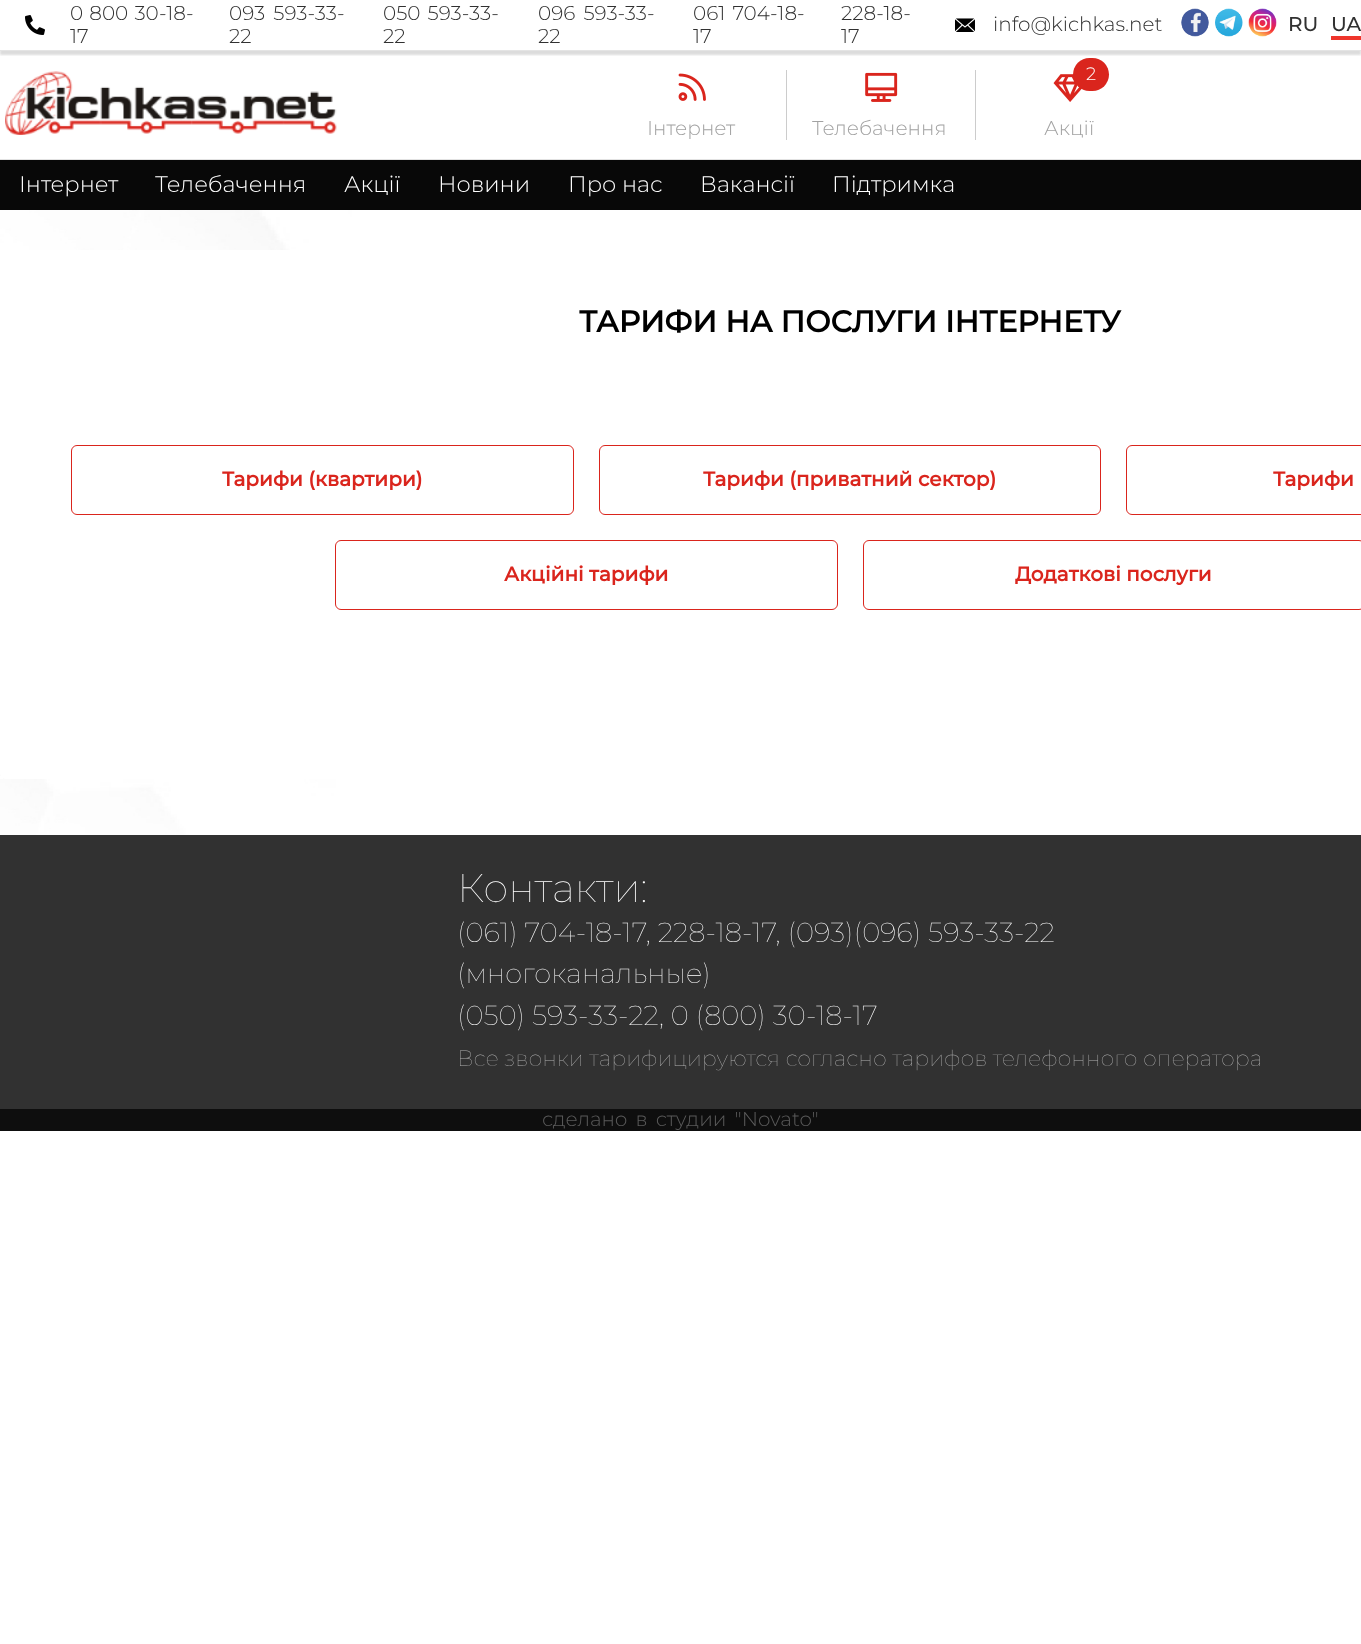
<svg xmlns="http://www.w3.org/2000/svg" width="1361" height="1644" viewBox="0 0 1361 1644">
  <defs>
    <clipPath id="clip1"><rect x="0" y="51" width="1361" height="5"/></clipPath>
  </defs>
  <rect width="100%" height="100%" fill="rgb(255,255,255)"/>
  <image x="0" y="210" width="352" height="625" href="pic1.png"/>
  <image x="1053" y="74" width="29" height="28" href="pic10.png"/>
  <rect x="1073" y="58" width="36" height="33" rx="16.5" fill="rgb(218,37,29)"/>
  <g clip-path="url(#clip1)">
    <rect x="0" y="4" width="1361" height="51" fill="rgba(50,50,50,0.17)" filter="blur(1px)"/>
  </g>
  <rect x="0" y="50" width="1361" height="1" fill="rgb(228,228,228)"/>
  <image x="25" y="15" width="20" height="20" href="pic2.png"/>
  <g font-family="Montserrat" font-size="20" font-weight="300" fill="rgb(49,49,49)">
    <text>
      <tspan x="70" y="20" word-spacing="1">0 800 30-18-</tspan>
      <tspan x="70" y="43">17</tspan>
    </text>
    <text>
      <tspan x="229" y="20" word-spacing="3">093 593-33-</tspan>
      <tspan x="229" y="43">22</tspan>
    </text>
    <text>
      <tspan x="383" y="20" word-spacing="2">050 593-33-</tspan>
      <tspan x="383" y="43">22</tspan>
    </text>
    <text>
      <tspan x="538" y="20" word-spacing="3">096 593-33-</tspan>
      <tspan x="538" y="43">22</tspan>
    </text>
    <text>
      <tspan x="693" y="20" word-spacing="2">061 704-18-</tspan>
      <tspan x="693" y="43">17</tspan>
    </text>
    <text>
      <tspan x="841" y="20">228-18-</tspan>
      <tspan x="841" y="43">17</tspan>
    </text>
  </g>
  <image x="955" y="18" width="20" height="14" href="pic3.png"/>
  <text x="993" y="31" font-family="Montserrat" font-size="20" font-weight="300" fill="rgb(49,49,49)">info@kichkas.net</text>
  <image x="1181" y="8" width="28" height="29" href="pic4.png"/>
  <image x="1215" y="8" width="28" height="29" href="pic5.png"/>
  <image x="1248" y="8" width="29" height="29" href="pic6.png"/>
  <g font-family="Montserrat" font-size="20" font-weight="500" fill="rgb(49,49,49)">
    <text x="1288" y="31">RU</text>
    <text x="1331" y="31">UA</text>
  </g>
  <rect x="1331" y="36" width="30" height="4" fill="rgb(239,53,44)"/>
  <rect x="0" y="159" width="1361" height="1" fill="rgb(226,226,226)"/>
  <image x="5" y="71" width="332" height="64" href="pic7.png"/>
  <rect x="786" y="70" width="1" height="70" fill="rgb(204,204,204)"/>
  <image x="678" y="73" width="28" height="28" href="pic8.png"/>
  <text x="647" y="135" font-family="Montserrat" font-size="20" font-weight="300" fill="rgb(162,162,162)">Інтернет</text>
  <rect x="975" y="70" width="1" height="70" fill="rgb(204,204,204)"/>
  <image x="865" y="72" width="33" height="30" href="pic9.png"/>
  <text x="812" y="135" font-family="Montserrat" font-size="20" font-weight="300" fill="rgb(162,162,162)">Телебачення</text>
  <text x="1086" y="80" font-family="Montserrat" font-size="18" font-weight="300" fill="rgb(255,255,255)">2</text>
  <text x="1044" y="135" font-family="Montserrat" font-size="20" font-weight="300" fill="rgb(162,162,162)">Акції</text>
  <rect x="0" y="160" width="1361" height="50" fill="rgb(8,8,8)"/>
  <g font-family="Montserrat" font-size="22.5" font-weight="300" fill="rgb(255,255,255)">
    <text x="19" y="192">Інтернет</text>
    <text x="155" y="192">Телебачення</text>
    <text x="344" y="192">Акції</text>
    <text x="438" y="192">Новини</text>
    <text x="568" y="192">Про нас</text>
    <text x="700" y="192">Вакансії</text>
    <text x="832" y="192">Підтримка</text>
  </g>
  <rect x="0" y="250" width="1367" height="529" rx="6" fill="rgb(255,255,255)"/>
  <text x="579" y="332" font-family="Montserrat" font-size="30" font-weight="bold" fill="rgb(0,0,0)">ТАРИФИ НА ПОСЛУГИ ІНТЕРНЕТУ</text>
  <rect x="71.5" y="445.5" width="502" height="69" rx="5.5" fill="none" stroke="rgb(218,37,29)"/>
  <text x="222" y="486" font-family="Montserrat" font-size="20" font-weight="bold" fill="rgb(218,37,29)">Тарифи (квартири)</text>
  <rect x="599.5" y="445.5" width="501" height="69" rx="5.5" fill="none" stroke="rgb(218,37,29)"/>
  <text x="703" y="486" font-family="Montserrat" font-size="20" font-weight="bold" fill="rgb(218,37,29)">Тарифи (приватний сектор)</text>
  <rect x="1126.5" y="445.5" width="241" height="69" rx="5.5" fill="none" stroke="rgb(218,37,29)"/>
  <text x="1273" y="486" font-family="Montserrat" font-size="20" font-weight="bold" fill="rgb(218,37,29)">Тарифи</text>
  <rect x="335.5" y="540.5" width="502" height="69" rx="5.5" fill="none" stroke="rgb(218,37,29)"/>
  <text x="504" y="581" font-family="Montserrat" font-size="20" font-weight="bold" fill="rgb(218,37,29)">Акційні тарифи</text>
  <rect x="863.5" y="540.5" width="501" height="69" rx="5.5" fill="none" stroke="rgb(218,37,29)"/>
  <text x="1015" y="581" font-family="Montserrat" font-size="20" font-weight="bold" fill="rgb(218,37,29)">Додаткові послуги</text>
  <rect x="0" y="776" width="3" height="3" fill="rgb(255,255,255)"/>
  <rect x="0" y="835" width="1361" height="274" fill="rgb(49,49,49)"/>
  <text x="457" y="902" font-family="Montserrat" font-size="40" font-weight="100" fill="rgb(255,255,255)">Контакти:</text>
  <g font-family="Montserrat" font-size="27.5" font-weight="100" fill="rgb(255,255,255)">
    <text>
      <tspan x="457" y="942">(061) 704-18-17, 228-18-17, (093)(096) 593-33-22</tspan>
      <tspan x="457" y="983">(многоканальные)</tspan>
      <tspan x="457" y="1025">(050) 593-33-22, 0 (800) 30-18-17</tspan>
    </text>
  </g>
  <text x="457" y="1066" font-family="Montserrat" font-size="22" font-weight="100" fill="rgb(176,176,176)">Все звонки тарифицируются согласно тарифов телефонного оператора</text>
  <rect x="0" y="1109" width="1361" height="22" fill="rgb(14,14,14)"/>
  <text x="542" y="1126" word-spacing="3" font-family="Montserrat" font-size="20" font-weight="300" fill="rgb(90,90,90)">сделано в студии "Novato"</text>
</svg>
